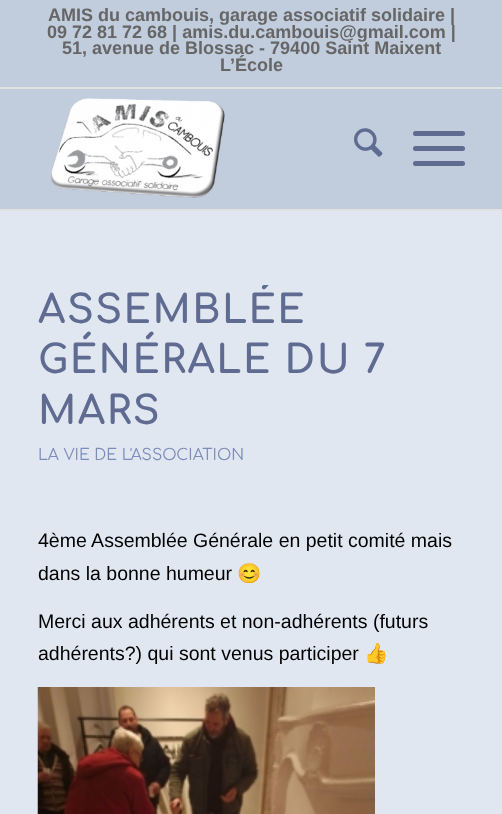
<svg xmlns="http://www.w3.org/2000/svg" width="502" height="814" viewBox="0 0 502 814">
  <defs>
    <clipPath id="clip1"><rect x="38" y="285" width="427" height="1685"/></clipPath>
  </defs>
  <rect width="100%" height="100%" fill="rgb(224,231,241)"/>
  <rect x="0" y="0" width="502" height="87" fill="rgb(193,204,221)"/>
  <rect x="0" y="87" width="502" height="2" fill="rgb(225,225,225)"/>
  <g font-family="Liberation Sans" font-size="18" font-weight="bold" fill="rgb(102,102,102)">
    <text x="48" y="21">AMIS du cambouis, garage associatif solidaire |</text>
    <text x="47" y="38">09 72 81 72 68 | amis.du.cambouis@gmail.com |</text>
    <text x="62" y="54">51, avenue de Blossac - 79400 Saint Maixent</text>
    <text x="220" y="71">L’École</text>
  </g>
  <rect x="0" y="89" width="502" height="120" fill="rgb(193,204,221)"/>
  <rect x="0" y="209" width="502" height="2" fill="rgb(225,225,225)"/>
  <image x="51" y="98" width="174" height="100" href="pic1.png"/>
  <image x="354" y="128" width="29" height="29" href="pic2.png"/>
  <rect x="413" y="146" width="52" height="5" rx="2.5" fill="rgb(95,107,145)"/>
  <rect x="413" y="131" width="52" height="5" rx="2.5" fill="rgb(95,107,145)"/>
  <rect x="413" y="161" width="52" height="5" rx="2.5" fill="rgb(95,107,145)"/>
  <g clip-path="url(#clip1)">
    <text x="38" y="323" font-family="Comfortaa" font-size="39" font-weight="bold" letter-spacing="1.5" fill="rgb(95,107,145)">ASSEMBLÉE</text>
  </g>
  <g font-family="Comfortaa" font-size="39" font-weight="bold" letter-spacing="1.5" fill="rgb(95,107,145)">
    <text>
      <tspan x="38" y="373">GÉNÉRALE DU 7</tspan>
      <tspan x="38" y="424">MARS</tspan>
    </text>
  </g>
  <text x="38" y="460" font-family="Comfortaa" font-size="15.6" fill="rgb(125,140,184)">LA VIE DE L'ASSOCIATION</text>
  <g font-family="Liberation Sans" font-size="19.5" fill="rgb(0,0,0)">
    <text>
      <tspan x="38" y="547">4ème Assemblée Générale en petit comité mais</tspan>
      <tspan x="38" y="580">dans la bonne humeur</tspan>
    </text>
  </g>
  <text x="237" y="580" font-family="Noto Color Emoji" font-size="19.5" fill="rgb(0,0,0)">😊</text>
  <g font-family="Liberation Sans" font-size="19.5" fill="rgb(0,0,0)">
    <text>
      <tspan x="38" y="628">Merci aux adhérents et non-adhérents (futurs</tspan>
      <tspan x="38" y="660">adhérents?) qui sont venus participer</tspan>
    </text>
  </g>
  <text x="364" y="660" font-family="Noto Color Emoji" font-size="19.5" fill="rgb(0,0,0)">👍</text>
  <image x="37" y="687" width="338" height="127" href="pic3.png"/>
</svg>
